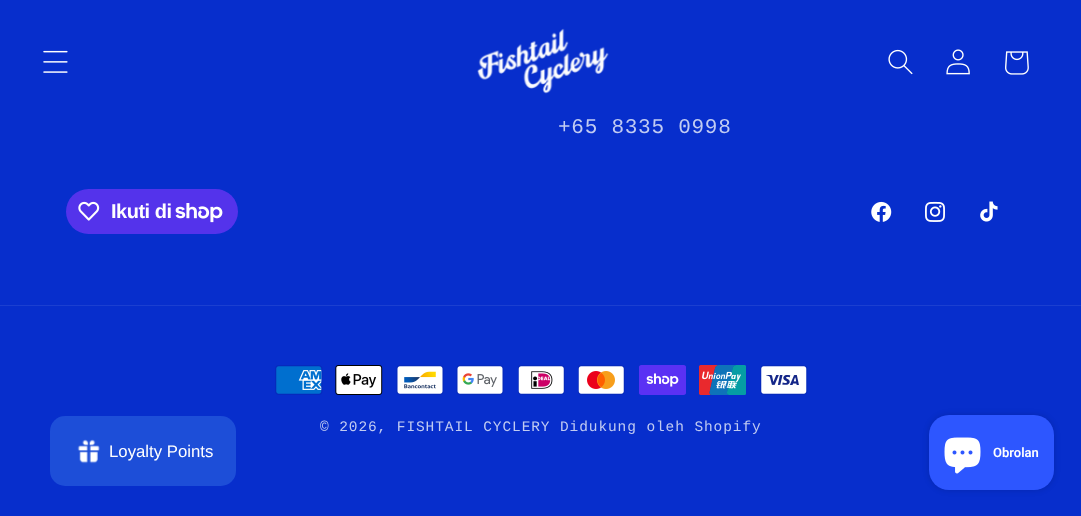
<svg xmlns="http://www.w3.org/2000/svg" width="1081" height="516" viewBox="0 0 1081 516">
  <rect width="100%" height="100%" fill="rgb(7,46,204)"/>
  <image x="43" y="50" width="25" height="23" href="pic1.png"/>
  <image x="477" y="28" width="132" height="66" href="pic2.png"/>
  <image x="888" y="49" width="25" height="26" href="pic3.png"/>
  <image x="946" y="49" width="24" height="26" href="pic4.png"/>
  <image x="1005" y="51" width="24" height="24" href="pic5.png"/>
  <text x="558" y="133" font-family="Liberation Mono" font-size="21" letter-spacing="0.75" fill="rgb(193,203,242)">+65 8335 0998</text>
  <rect x="66" y="189" width="172" height="45" rx="22.5" fill="rgb(84,51,235)"/>
  <image x="78" y="201" width="22" height="20" href="pic6.png"/>
  <text x="111" y="218" font-family="Liberation Sans" font-size="20" font-weight="bold" letter-spacing="-0.5" fill="rgb(255,255,255)">Ikuti di</text>
  <image x="175" y="203" width="48" height="20" href="pic7.png"/>
  <image x="871" y="201" width="21" height="21" href="pic8.png"/>
  <image x="925" y="201" width="20" height="21" href="pic9.png"/>
  <image x="980" y="201" width="18" height="21" href="pic10.png"/>
  <rect x="0" y="305" width="1081" height="1" fill="rgb(27,63,208)"/>
  <image x="275" y="365" width="48" height="30" href="pic11.png"/>
  <image x="335" y="365" width="48" height="30" href="pic12.png"/>
  <image x="396" y="365" width="48" height="30" href="pic13.png"/>
  <image x="456" y="365" width="48" height="30" href="pic14.png"/>
  <image x="518" y="365" width="47" height="30" href="pic15.png"/>
  <image x="578" y="365" width="47" height="30" href="pic16.png"/>
  <image x="639" y="365" width="47" height="30" href="pic17.png"/>
  <image x="699" y="365" width="47" height="30" href="pic18.png"/>
  <image x="760" y="365" width="48" height="30" href="pic19.png"/>
  <g font-family="Liberation Mono" font-size="14.5" letter-spacing="0.9" fill="rgb(193,203,242)">
    <text x="320" y="431">© 2026, FISHTAIL CYCLERY</text>
    <text x="560" y="431">Didukung oleh Shopify</text>
  </g>
  <rect x="50" y="416" width="186" height="70" rx="15" fill="rgb(29,78,216)"/>
  <image x="77" y="439" width="23" height="25" href="pic20.png"/>
  <text x="109" y="457" font-family="Liberation Sans" font-size="16.75" fill="rgb(255,255,255)">Loyalty Points</text>
  <rect x="929" y="415" width="125" height="75" rx="20" fill="rgba(0,0,0,0.15)" filter="blur(3px)"/>
  <rect x="929" y="415" width="125" height="75" rx="20" fill="rgb(45,86,255)"/>
  <image x="944" y="437" width="37" height="37" href="pic21.png"/>
  <text x="993" y="457" font-family="Roboto" font-size="13" font-weight="600" fill="rgb(255,255,255)">Obrolan</text>
</svg>
